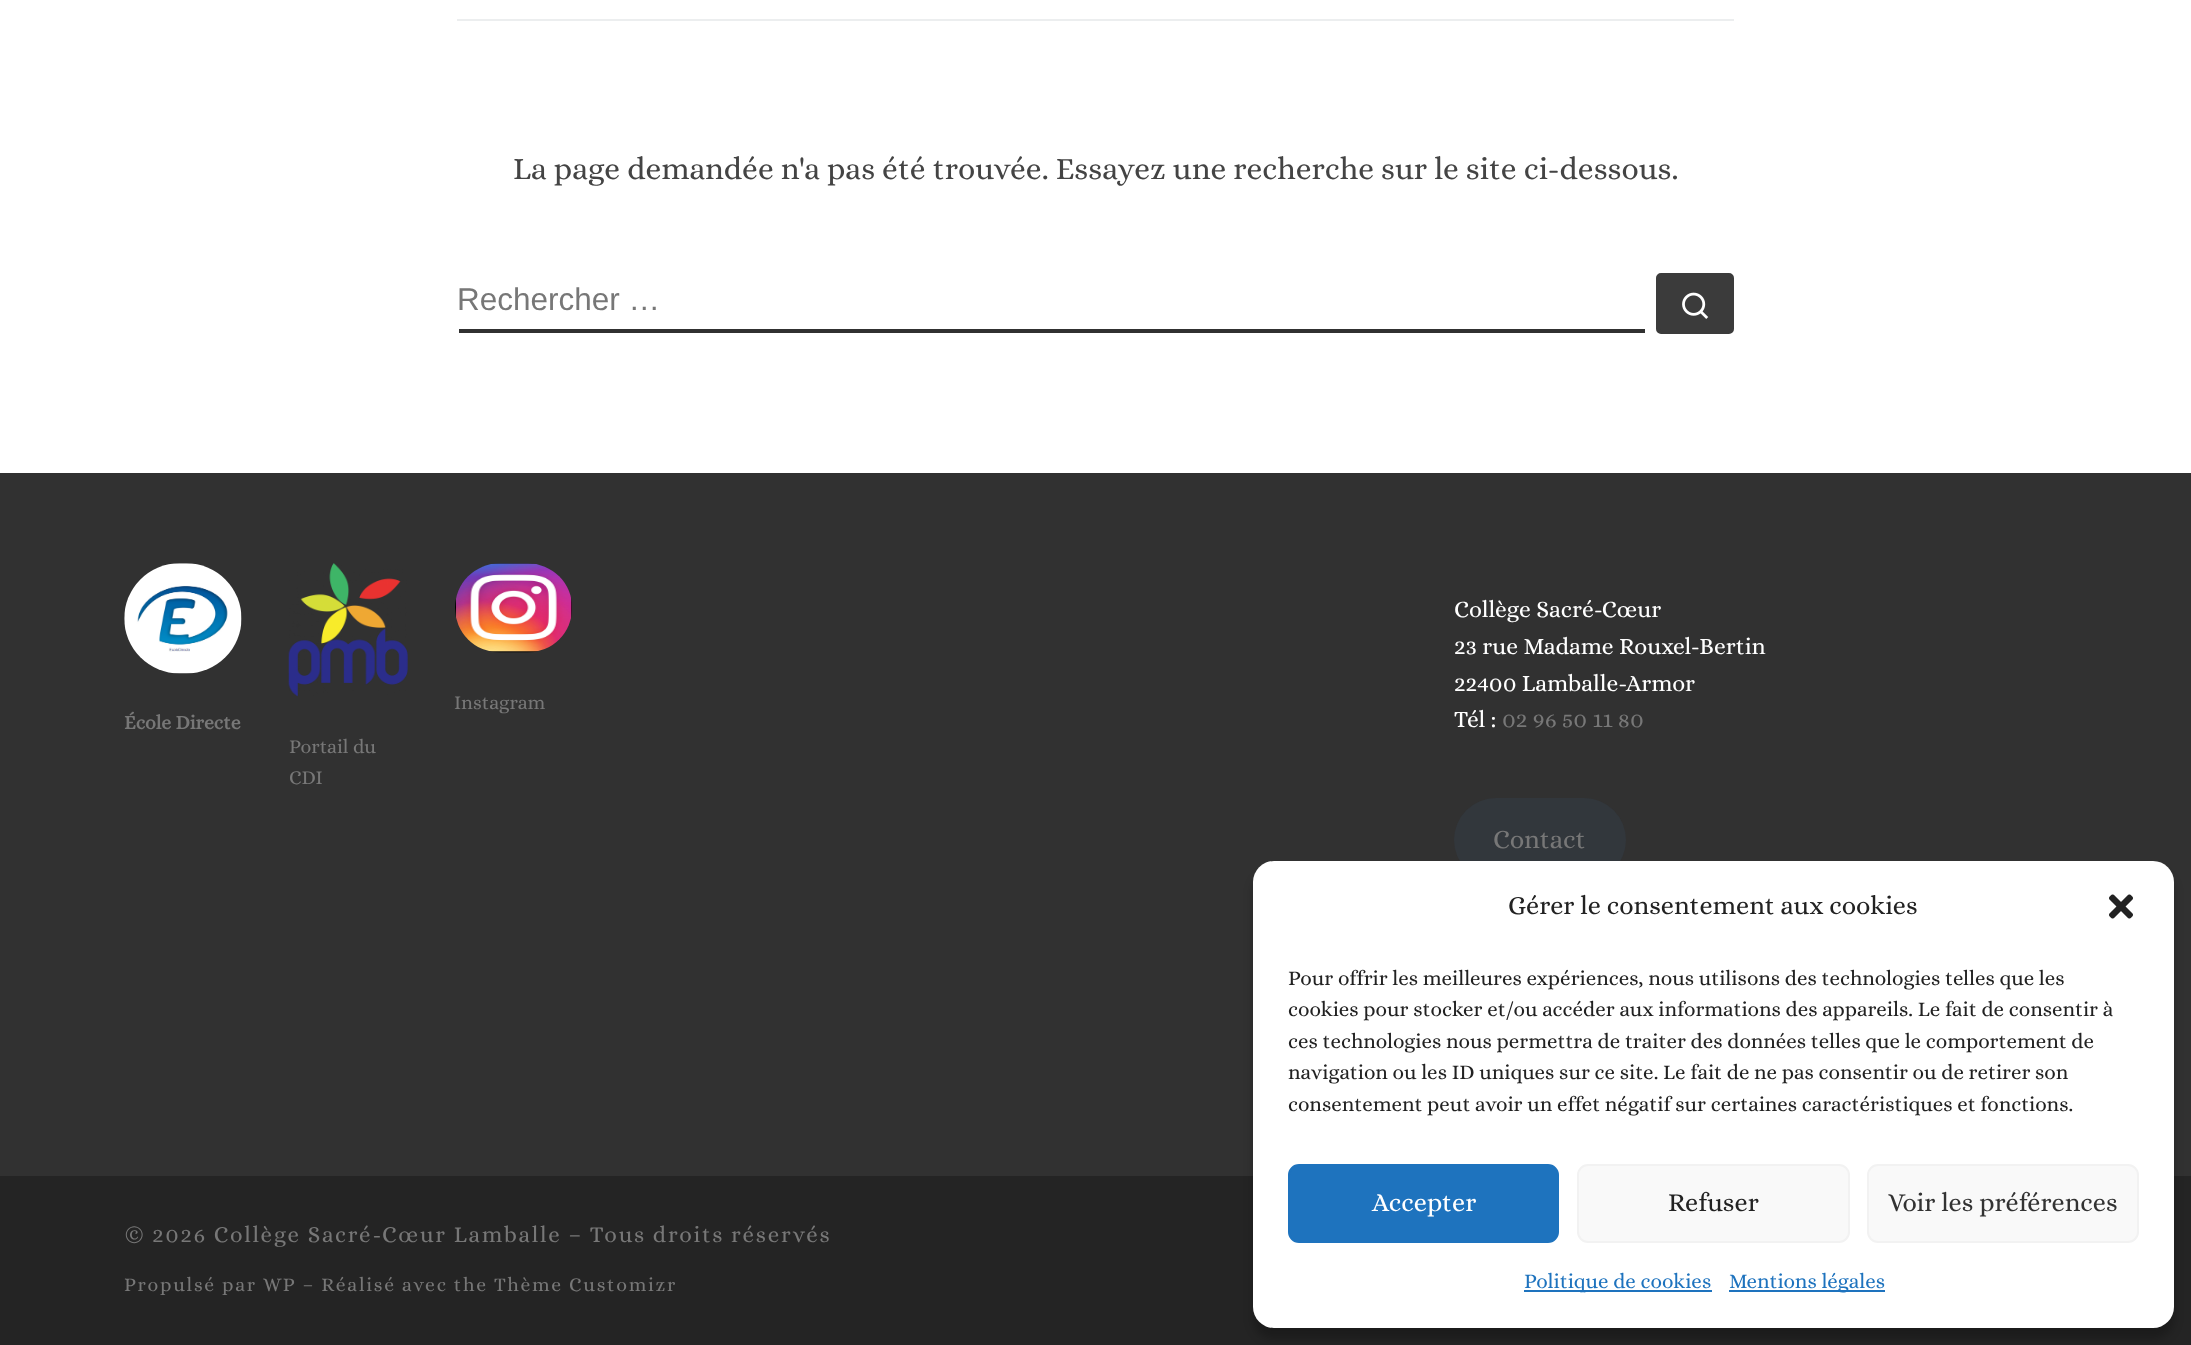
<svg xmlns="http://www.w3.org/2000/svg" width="2191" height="1345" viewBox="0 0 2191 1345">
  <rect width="100%" height="100%" fill="rgb(255,255,255)"/>
  <rect x="457" y="19" width="1277" height="2" fill="rgb(236,238,239)"/>
  <text x="513" y="179" font-family="Alice" font-size="31.5" fill="rgb(68,68,68)">La page demandée n'a pas été trouvée. Essayez une recherche sur le site ci-dessous.</text>
  <rect x="459" y="329" width="1186" height="4" fill="rgb(49,49,49)"/>
  <text x="457" y="310" font-family="Liberation Sans" font-size="31.5" fill="rgb(119,119,119)">Rechercher …</text>
  <rect x="1658" y="275" width="74" height="57" rx="3" fill="rgb(59,59,59)" stroke="rgb(59,59,59)" stroke-width="4"/>
  <image x="1682" y="292" width="27" height="27" href="pic1.png"/>
  <rect x="0" y="473" width="2191" height="703" fill="rgb(49,49,49)"/>
  <image x="455" y="563" width="117" height="90" href="pic2.png"/>
  <text x="454" y="709" font-family="Alice" font-size="19.75" fill="rgb(119,119,119)">Instagram</text>
  <image x="124" y="563" width="118" height="111" href="pic3.png"/>
  <text x="124" y="729" font-family="Alice" font-size="19.75" font-weight="bold" fill="rgb(119,119,119)">École Directe</text>
  <image x="288" y="563" width="120" height="134" href="pic4.png"/>
  <g font-family="Alice" font-size="19.75" fill="rgb(119,119,119)">
    <text>
      <tspan x="289" y="753">Portail du</tspan>
      <tspan x="289" y="784">CDI</tspan>
    </text>
  </g>
  <g font-family="Alice" font-size="23.6" fill="rgb(255,255,255)">
    <text>
      <tspan x="1454" y="617">Collège Sacré-Cœur</tspan>
      <tspan x="1454" y="654">23 rue Madame Rouxel-Bertin</tspan>
      <tspan x="1454" y="691">22400 Lamballe-Armor</tspan>
      <tspan x="1454" y="727">Tél :</tspan>
    </text>
  </g>
  <text x="1502" y="727" font-family="Alice" font-size="23.6" fill="rgb(119,119,119)">02 96 50 11 80</text>
  <rect x="1454" y="798" width="172" height="84" rx="42" fill="rgb(50,55,60)"/>
  <text x="1493" y="848" font-family="Alice" font-size="26.5" fill="rgb(119,119,119)">Contact</text>
  <rect x="0" y="1176" width="2191" height="169" fill="rgb(36,36,36)"/>
  <text x="124" y="1242" font-family="Alice" font-size="22.95" letter-spacing="1.75" fill="rgb(119,119,119)">© 2026 Collège Sacré-Cœur Lamballe – Tous droits réservés</text>
  <text x="124" y="1291" font-family="Alice" font-size="19.6" letter-spacing="1.75" fill="rgb(119,119,119)">Propulsé par WP – Réalisé avec the Thème Customizr</text>
  <rect x="1253" y="872" width="921" height="467" rx="21" fill="rgba(0,0,0,0.23)" filter="blur(5px)"/>
  <rect x="1253" y="861" width="921" height="467" rx="21" fill="rgb(255,255,255)"/>
  <text x="1508" y="914" font-family="Alice" font-size="26.25" fill="rgb(34,34,34)">Gérer le consentement aux cookies</text>
  <image x="2109" y="894" width="24" height="25" href="pic5.png"/>
  <g font-family="Alice" font-size="21" fill="rgb(34,34,34)">
    <text>
      <tspan x="1288" y="985">Pour offrir les meilleures expériences, nous utilisons des technologies telles que les</tspan>
      <tspan x="1288" y="1016">cookies pour stocker et/ou accéder aux informations des appareils. Le fait de consentir à</tspan>
      <tspan x="1288" y="1048">ces technologies nous permettra de traiter des données telles que le comportement de</tspan>
      <tspan x="1288" y="1079">navigation ou les ID uniques sur ce site. Le fait de ne pas consentir ou de retirer son</tspan>
      <tspan x="1288" y="1111">consentement peut avoir un effet négatif sur certaines caractéristiques et fonctions.</tspan>
    </text>
  </g>
  <rect x="1289" y="1165" width="269" height="77" rx="10" fill="rgb(30,115,190)" stroke="rgb(30,115,190)" stroke-width="2"/>
  <text x="1372" y="1211" font-family="Alice" font-size="26.25" fill="rgb(255,255,255)">Accepter</text>
  <rect x="1578" y="1165" width="271" height="77" rx="10" fill="rgb(249,249,249)" stroke="rgb(242,242,242)" stroke-width="2"/>
  <text x="1668" y="1211" font-family="Alice" font-size="26.25" fill="rgb(34,34,34)">Refuser</text>
  <rect x="1868" y="1165" width="270" height="77" rx="10" fill="rgb(249,249,249)" stroke="rgb(242,242,242)" stroke-width="2"/>
  <text x="1888" y="1211" font-family="Alice" font-size="26.25" fill="rgb(51,51,51)">Voir les préférences</text>
  <rect x="1524" y="1290" width="188" height="2" fill="rgb(30,115,190)"/>
  <text x="1524" y="1288" font-family="Alice" font-size="21" fill="rgb(30,115,190)">Politique de cookies</text>
  <rect x="1729" y="1290" width="156" height="2" fill="rgb(30,115,190)"/>
  <text x="1729" y="1288" font-family="Alice" font-size="21" fill="rgb(30,115,190)">Mentions légales</text>
</svg>
